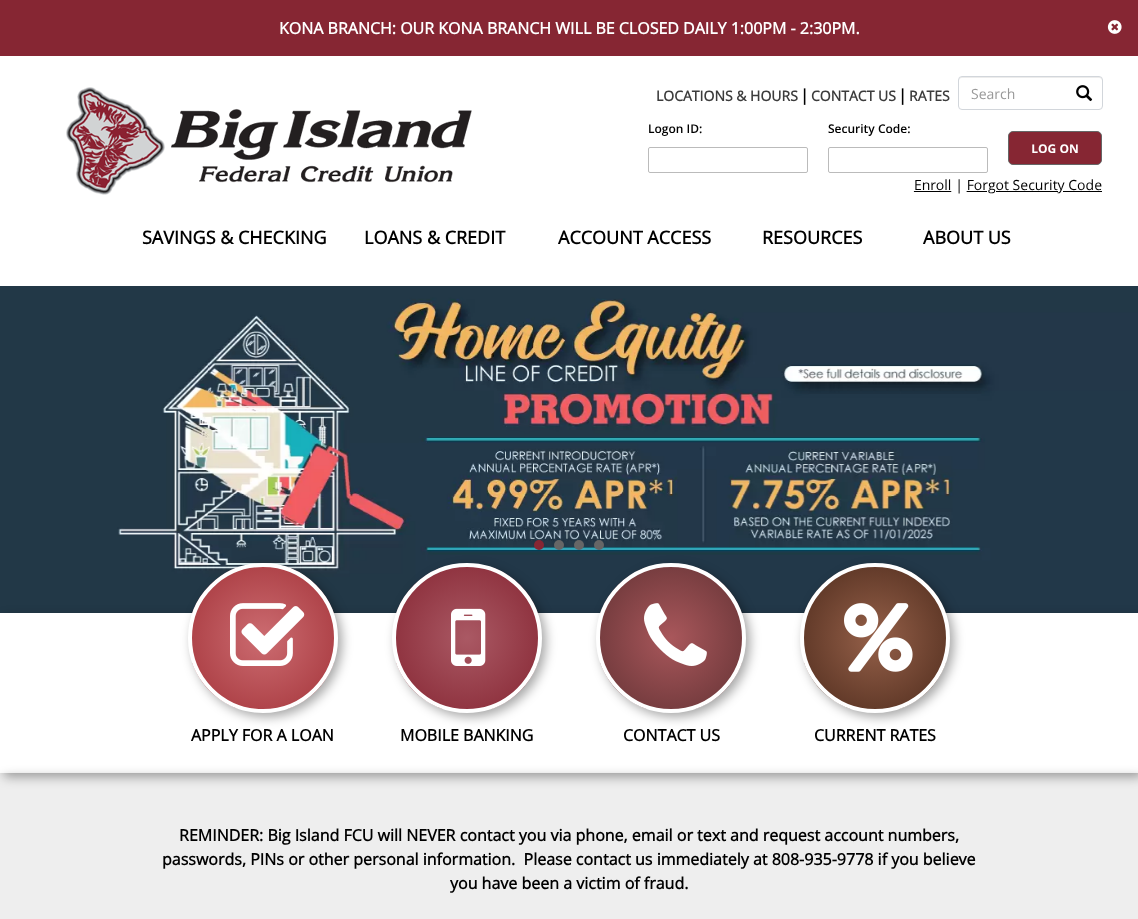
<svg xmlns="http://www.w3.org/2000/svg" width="1138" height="919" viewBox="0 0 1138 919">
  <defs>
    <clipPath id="clip1"><path d="M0 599H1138V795H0ZM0 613H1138V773H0Z" clip-rule="evenodd"/></clipPath>
    <clipPath id="clip2"><rect x="188" y="563" width="150" height="150" rx="75"/></clipPath>
    <radialGradient id="g1" gradientUnits="userSpaceOnUse" cx="263" cy="638" r="100"><stop offset="0" stop-color="rgb(204,108,113)"/><stop offset="1" stop-color="rgb(164,52,58)"/></radialGradient>
    <clipPath id="clip3"><rect x="392" y="563" width="150" height="150" rx="75"/></clipPath>
    <radialGradient id="g2" gradientUnits="userSpaceOnUse" cx="467" cy="638" r="100"><stop offset="0" stop-color="rgb(170,89,100)"/><stop offset="1" stop-color="rgb(134,38,51)"/></radialGradient>
    <clipPath id="clip4"><rect x="596" y="563" width="150" height="150" rx="75"/></clipPath>
    <radialGradient id="g3" gradientUnits="userSpaceOnUse" cx="671" cy="638" r="100"><stop offset="0" stop-color="rgb(169,87,91)"/><stop offset="1" stop-color="rgb(100,51,53)"/></radialGradient>
    <clipPath id="clip5"><rect x="800" y="563" width="150" height="150" rx="75"/></clipPath>
    <radialGradient id="g4" gradientUnits="userSpaceOnUse" cx="875" cy="638" r="100"><stop offset="0" stop-color="rgb(149,96,73)"/><stop offset="1" stop-color="rgb(79,44,29)"/></radialGradient>
  </defs>
  <rect width="100%" height="100%" fill="rgb(255,255,255)"/>
  <rect x="0" y="0" width="1138" height="56" fill="rgb(134,38,51)"/>
  <text x="279" y="34" font-family="Open Sans" font-size="16" font-weight="bold" fill="rgb(255,255,255)">KONA BRANCH: OUR KONA BRANCH WILL BE CLOSED DAILY 1:00PM - 2:30PM.</text>
  <image x="1107" y="20" width="15" height="14" href="pic1.png"/>
  <image x="66" y="87" width="406" height="108" href="pic2.png"/>
  <text x="656" y="101" font-family="Open Sans" font-size="14" font-weight="bold" fill="rgb(60,60,60)">LOCATIONS &amp; HOURS</text>
  <text x="800" y="101" font-family="Open Sans" font-size="16" font-weight="bold" fill="rgb(0,0,0)">|</text>
  <text x="811" y="101" font-family="Open Sans" font-size="14" font-weight="bold" fill="rgb(60,60,60)">CONTACT US</text>
  <text x="898" y="101" font-family="Open Sans" font-size="16" font-weight="bold" fill="rgb(0,0,0)">|</text>
  <text x="909" y="101" font-family="Open Sans" font-size="14" font-weight="bold" fill="rgb(60,60,60)">RATES</text>
  <path d="M962 78H1099C1101 78 1102 79 1102 81V80C1102 78 1101 77 1099 77H962C960 77 959 78 959 80V81C959 79 960 78 962 78Z" fill="rgb(236,236,236)"/>
  <rect x="958.5" y="76.5" width="144" height="33" rx="3.5" fill="none" stroke="rgb(210,214,219)"/>
  <text x="971" y="99" font-family="Open Sans" font-size="14" fill="rgb(153,153,153)">Search</text>
  <image x="1076" y="85" width="17" height="17" href="pic3.png"/>
  <image x="648" y="124" width="454" height="70" href="pic4.png"/>
  <g font-family="Open Sans" font-size="18" font-weight="bold" fill="rgb(0,0,0)">
    <text x="142" y="244">SAVINGS &amp; CHECKING</text>
    <text x="364" y="244">LOANS &amp; CREDIT</text>
    <text x="558" y="244">ACCOUNT ACCESS</text>
    <text x="762" y="244">RESOURCES</text>
    <text x="923" y="244">ABOUT US</text>
  </g>
  <image x="0" y="286" width="1138" height="327" href="pic5.png"/>
  <rect x="396" y="567" width="150" height="150" rx="75" fill="rgba(0,0,0,0.35)" filter="blur(5.5px)"/>
  <circle cx="539" cy="545" r="5" fill="rgb(134,38,51)"/>
  <circle cx="559" cy="545" r="5" fill="rgb(102,102,102)"/>
  <rect x="600" y="567" width="150" height="150" rx="75" fill="rgba(0,0,0,0.35)" filter="blur(5.5px)"/>
  <circle cx="579" cy="545" r="5" fill="rgb(102,102,102)"/>
  <circle cx="599" cy="545" r="5" fill="rgb(102,102,102)"/>
  <rect x="4" y="777" width="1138" height="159" fill="rgba(0,0,0,0.35)" filter="blur(5.5px)"/>
  <rect x="0" y="773" width="1138" height="146" fill="rgb(238,238,238)"/>
  <g clip-path="url(#clip1)">
    <rect x="4" y="617" width="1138" height="160" fill="rgba(0,0,0,0.35)" filter="blur(5.5px)"/>
  </g>
  <rect x="192" y="567" width="150" height="150" rx="75" fill="rgba(0,0,0,0.35)" filter="blur(5.5px)"/>
  <g clip-path="url(#clip2)">
    <rect x="192" y="567" width="142" height="142" fill="url(#g1)"/>
  </g>
  <circle cx="263" cy="638" r="73" fill="none" stroke="rgb(255,255,255)" stroke-width="4"/>
  <image x="230" y="603" width="75" height="63" href="pic6.png"/>
  <g clip-path="url(#clip3)">
    <rect x="396" y="567" width="142" height="142" fill="url(#g2)"/>
  </g>
  <circle cx="467" cy="638" r="73" fill="none" stroke="rgb(255,255,255)" stroke-width="4"/>
  <image x="451" y="608" width="35" height="58" href="pic7.png"/>
  <g clip-path="url(#clip4)">
    <rect x="600" y="567" width="142" height="142" fill="url(#g3)"/>
  </g>
  <circle cx="671" cy="638" r="73" fill="none" stroke="rgb(255,255,255)" stroke-width="4"/>
  <image x="644" y="603" width="63" height="63" href="pic8.png"/>
  <rect x="804" y="567" width="150" height="150" rx="75" fill="rgba(0,0,0,0.35)" filter="blur(5.5px)"/>
  <g clip-path="url(#clip5)">
    <rect x="804" y="567" width="142" height="142" fill="url(#g4)"/>
  </g>
  <circle cx="875" cy="638" r="73" fill="none" stroke="rgb(255,255,255)" stroke-width="4"/>
  <image x="844" y="603" width="69" height="69" href="pic9.png"/>
  <g font-family="Open Sans" font-size="16" font-weight="bold" fill="rgb(0,0,0)">
    <text x="191" y="741">APPLY FOR A LOAN</text>
    <text x="400" y="741">MOBILE BANKING</text>
    <text x="623" y="741">CONTACT US</text>
    <text x="814" y="741">CURRENT RATES</text>
    <text x="179" y="841">REMINDER: Big Island FCU will NEVER contact you via phone, email or text and request account numbers,</text>
    <text x="162" y="865" xml:space="preserve">passwords, PINs or other personal information.  Please contact us immediately at 808-935-9778 if you believe</text>
    <text x="450" y="889">you have been a victim of fraud.</text>
  </g>
</svg>
